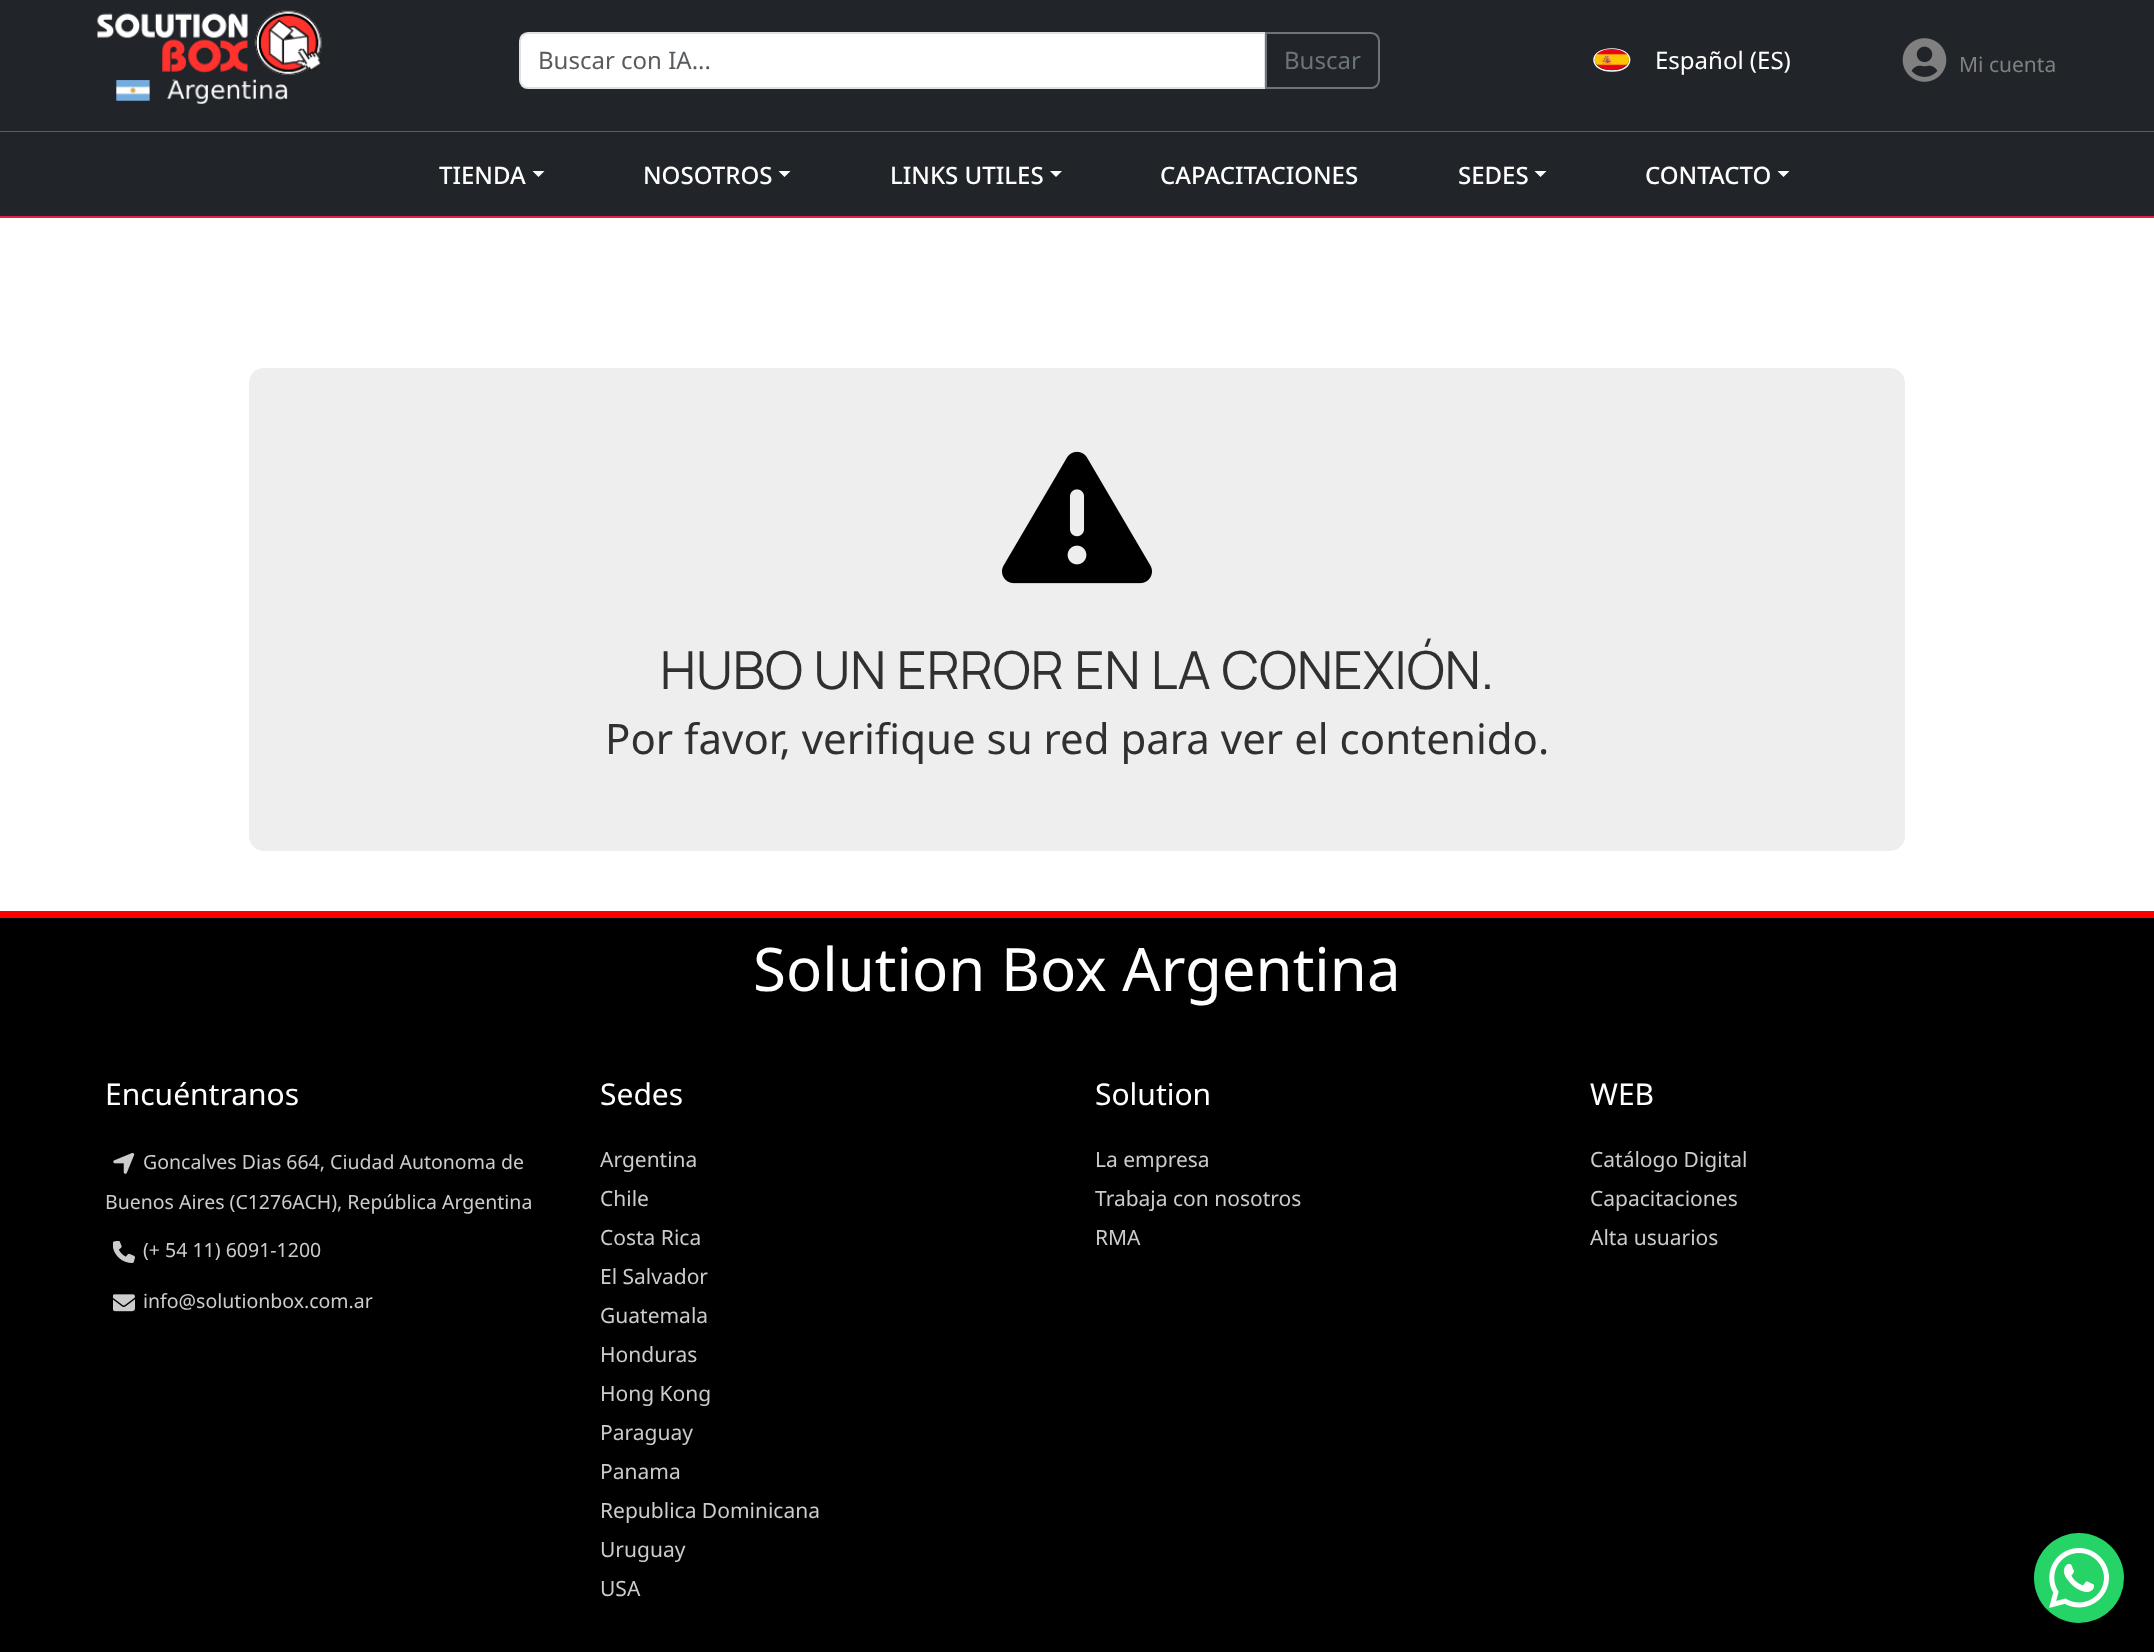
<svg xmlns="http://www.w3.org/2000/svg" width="2154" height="1652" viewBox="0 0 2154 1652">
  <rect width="100%" height="100%" fill="rgb(255,255,255)"/>
  <rect x="0" y="0" width="2154" height="131" fill="rgb(33,37,41)"/>
  <image x="97" y="10" width="226" height="94" href="pic1.png"/>
  <path d="M528 33H1265V88H528C523.5 88 520 84.5 520 80V41C520 36.5 523.5 33 528 33Z" fill="rgb(255,255,255)" stroke="rgb(222,226,230)" stroke-width="2"/>
  <text x="538" y="69" font-family="Noto Sans" font-size="24" fill="rgb(89,92,95)">Buscar con IA...</text>
  <path d="M1266 33H1371C1375.5 33 1379 36.5 1379 41V80C1379 84.5 1375.5 88 1371 88H1266Z" fill="none" stroke="rgb(108,117,125)" stroke-width="2"/>
  <text x="1284" y="69" font-family="Noto Sans" font-size="24" fill="rgb(108,117,125)">Buscar</text>
  <path d="M1612 49C1635.5 49 1635.5 71 1612 71C1588 71 1588 49 1612 49Z" fill="none" stroke="rgb(255,255,255)" stroke-width="1.5"/>
  <image x="1594" y="49" width="35" height="21" href="pic2.png"/>
  <text x="1655" y="69" font-family="Noto Sans" font-size="24" fill="rgb(255,255,255)">Español (ES)</text>
  <image x="1902" y="38" width="45" height="44" href="pic3.png"/>
  <text x="1959" y="72" font-family="Noto Sans" font-size="21" fill="rgb(128,128,128)">Mi cuenta</text>
  <rect x="0" y="131" width="2154" height="1" fill="rgb(225,29,72)"/>
  <rect x="0" y="216" width="2154" height="2" fill="rgb(225,29,72)"/>
  <rect x="0" y="132" width="2154" height="84" fill="rgb(33,37,41)"/>
  <text x="439" y="184" font-family="Noto Sans" font-size="24" font-weight="500" fill="rgb(255,255,255)">TIENDA</text>
  <path d="M532.5 171H544.5L538.5 177Z" fill="rgb(255,255,255)"/>
  <text x="643" y="184" font-family="Noto Sans" font-size="24" font-weight="500" fill="rgb(255,255,255)">NOSOTROS</text>
  <path d="M778.5 171H790.5L784.5 177Z" fill="rgb(255,255,255)"/>
  <text x="890" y="184" font-family="Noto Sans" font-size="24" font-weight="500" fill="rgb(255,255,255)">LINKS UTILES</text>
  <path d="M1050 171H1062L1056 177Z" fill="rgb(255,255,255)"/>
  <g font-family="Noto Sans" font-size="24" font-weight="500" fill="rgb(255,255,255)">
    <text x="1160" y="184">CAPACITACIONES</text>
    <text x="1458" y="184">SEDES</text>
  </g>
  <path d="M1534.5 171H1546.5L1540.5 177Z" fill="rgb(255,255,255)"/>
  <text x="1645" y="184" font-family="Noto Sans" font-size="24" font-weight="500" fill="rgb(255,255,255)">CONTACTO</text>
  <path d="M1777.5 171H1789.5L1783.5 177Z" fill="rgb(255,255,255)"/>
  <rect x="249" y="368" width="1656" height="483" rx="15" fill="rgb(238,238,238)"/>
  <image x="1002" y="451" width="150" height="133" href="pic4.png"/>
  <text x="660" y="689" font-family="Manrope" font-size="52.5" fill="rgb(48,48,48)">HUBO UN ERROR EN LA CONEXIÓN.</text>
  <text x="605" y="754" font-family="Noto Sans" font-size="42" fill="rgb(48,48,48)">Por favor, verifique su red para ver el contenido.</text>
  <rect x="0" y="918" width="2154" height="734" fill="rgb(0,0,0)"/>
  <rect x="0" y="911" width="2154" height="7" fill="rgb(255,0,0)"/>
  <text x="753" y="991" font-family="Noto Sans" font-size="60" fill="rgb(255,255,255)">Solution Box Argentina</text>
  <text x="105" y="1105" font-family="Noto Sans" font-size="30" fill="rgb(255,255,255)">Encuéntranos</text>
  <image x="113" y="1153" width="22" height="21" href="pic5.png"/>
  <g font-family="Noto Sans" font-size="19.5" fill="rgb(204,204,204)">
    <text x="143" y="1169">Goncalves Dias 664, Ciudad Autonoma de</text>
    <text x="105" y="1209">Buenos Aires (C1276ACH), República Argentina</text>
  </g>
  <image x="113" y="1241" width="22" height="22" href="pic6.png"/>
  <text x="143" y="1257" font-family="Noto Sans" font-size="19.5" fill="rgb(204,204,204)">(+ 54 11) 6091-1200</text>
  <image x="113" y="1294" width="22" height="18" href="pic7.png"/>
  <text x="143" y="1308" font-family="Noto Sans" font-size="19.5" fill="rgb(204,204,204)">info@solutionbox.com.ar</text>
  <text x="600" y="1105" font-family="Noto Sans" font-size="30" fill="rgb(255,255,255)">Sedes</text>
  <g font-family="Noto Sans" font-size="21" fill="rgb(204,204,204)">
    <text>
      <tspan x="600" y="1167">Argentina</tspan>
      <tspan x="600" y="1206">Chile</tspan>
      <tspan x="600" y="1245">Costa Rica</tspan>
      <tspan x="600" y="1284">El Salvador</tspan>
      <tspan x="600" y="1323">Guatemala</tspan>
      <tspan x="600" y="1362">Honduras</tspan>
      <tspan x="600" y="1401">Hong Kong</tspan>
      <tspan x="600" y="1440">Paraguay</tspan>
      <tspan x="600" y="1479">Panama</tspan>
      <tspan x="600" y="1518">Republica Dominicana</tspan>
      <tspan x="600" y="1557">Uruguay</tspan>
      <tspan x="600" y="1596">USA</tspan>
    </text>
  </g>
  <text x="1095" y="1105" font-family="Noto Sans" font-size="30" fill="rgb(255,255,255)">Solution</text>
  <g font-family="Noto Sans" font-size="21" fill="rgb(204,204,204)">
    <text>
      <tspan x="1095" y="1167">La empresa</tspan>
      <tspan x="1095" y="1206">Trabaja con nosotros</tspan>
      <tspan x="1095" y="1245">RMA</tspan>
    </text>
  </g>
  <text x="1590" y="1105" font-family="Noto Sans" font-size="30" fill="rgb(255,255,255)">WEB</text>
  <g font-family="Noto Sans" font-size="21" fill="rgb(204,204,204)">
    <text>
      <tspan x="1590" y="1167">Catálogo Digital</tspan>
      <tspan x="1590" y="1206">Capacitaciones</tspan>
      <tspan x="1590" y="1245">Alta usuarios</tspan>
    </text>
  </g>
  <circle cx="2079" cy="1578" r="45" fill="rgb(37,211,102)"/>
  <image x="2049" y="1548" width="60" height="60" href="pic8.png"/>
</svg>
